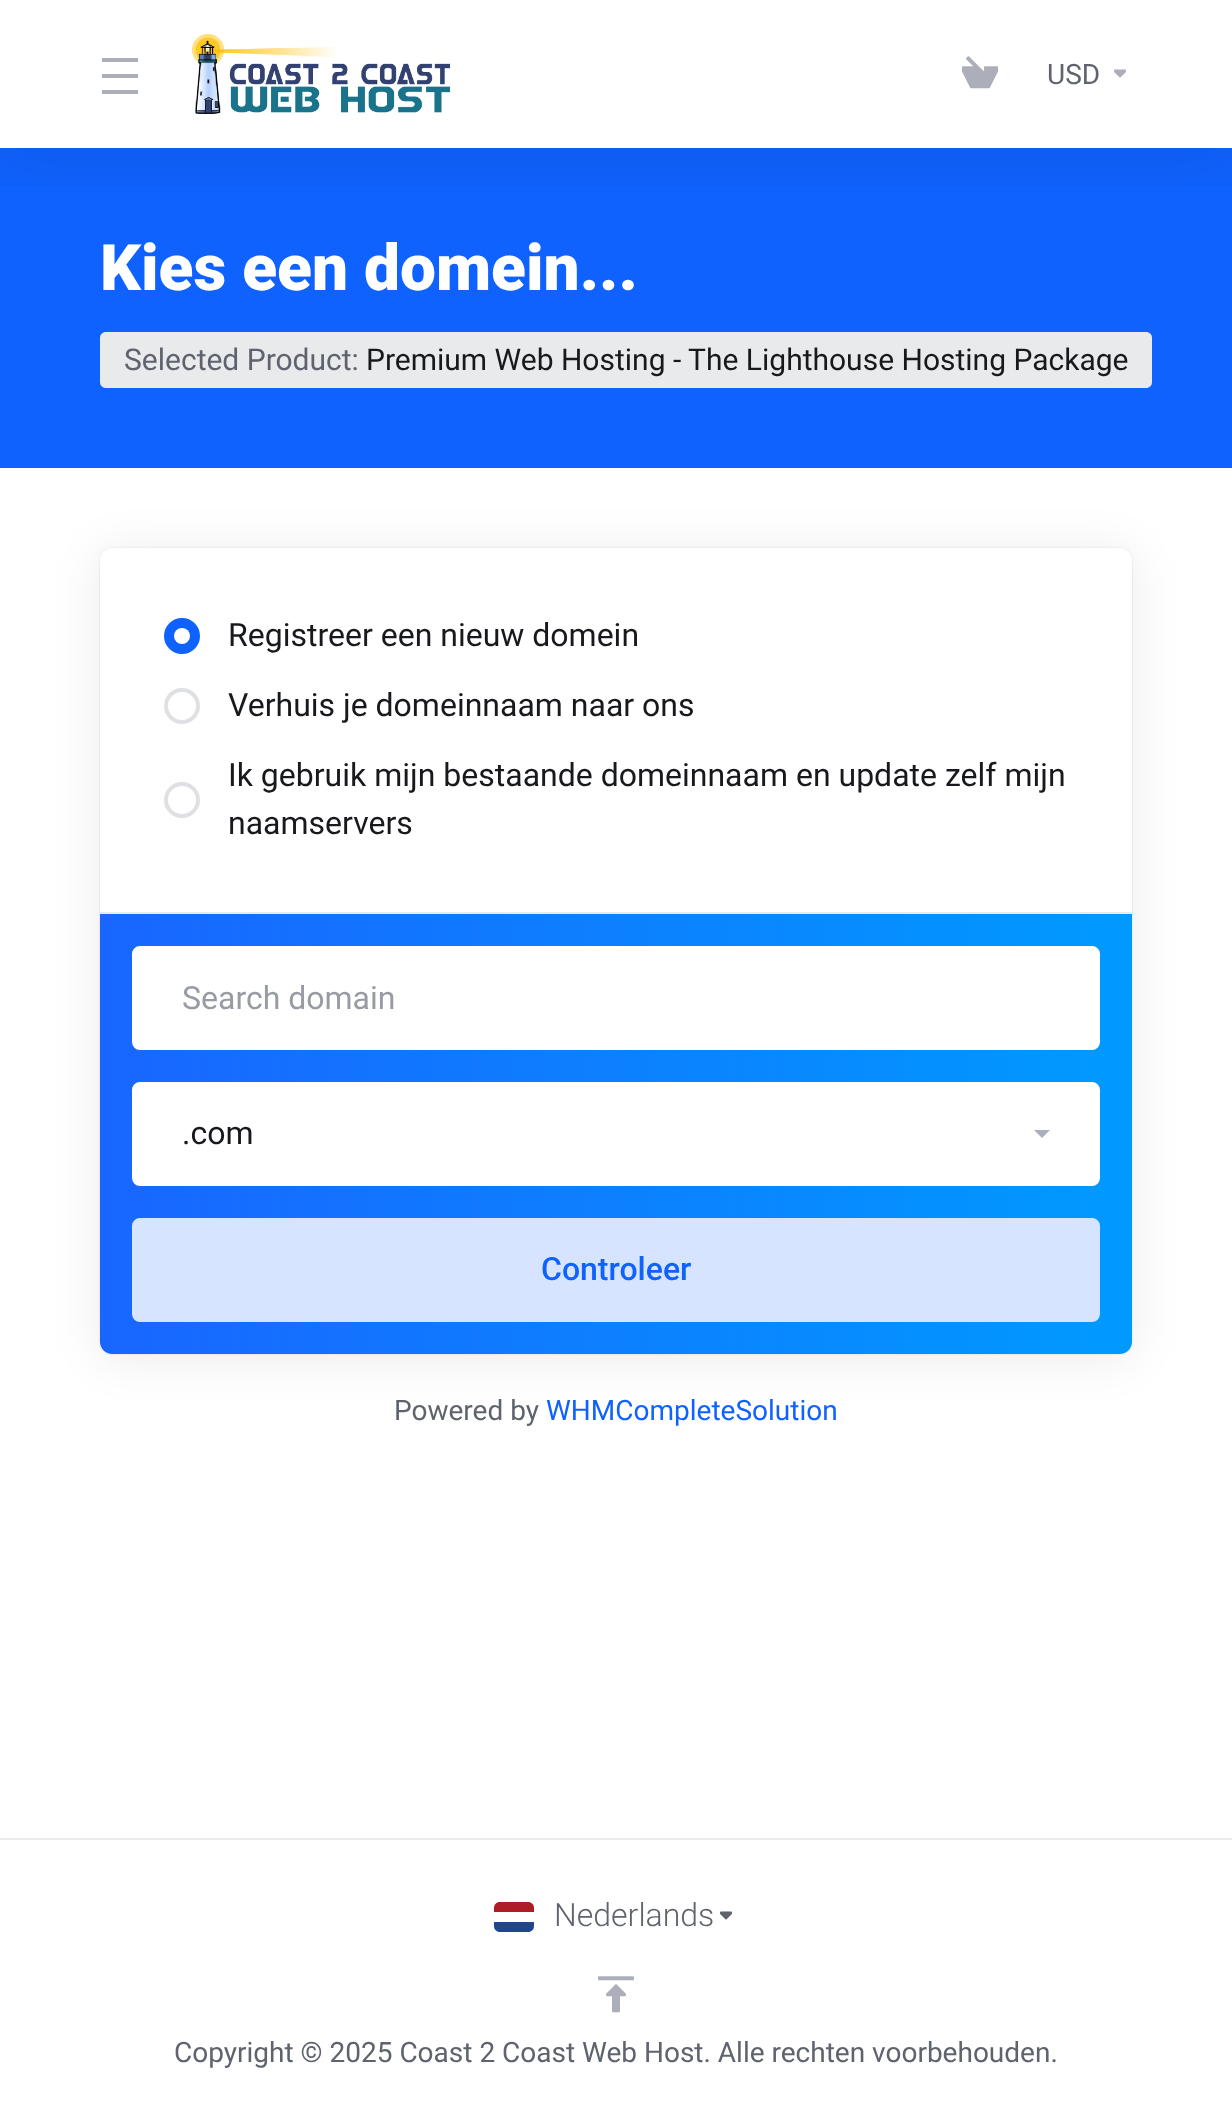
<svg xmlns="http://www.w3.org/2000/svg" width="1232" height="2107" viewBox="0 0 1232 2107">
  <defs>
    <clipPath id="clip1"><rect x="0" y="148" width="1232" height="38"/></clipPath>
    <linearGradient id="g1" gradientUnits="userSpaceOnUse" x1="100" y1="1134" x2="1132" y2="1134"><stop offset="0" stop-color="rgb(25,102,255)"/><stop offset="1" stop-color="rgb(0,154,255)"/></linearGradient>
  </defs>
  <rect width="100%" height="100%" fill="rgb(255,255,255)"/>
  <rect x="0" y="148" width="1232" height="320" fill="rgb(16,98,254)"/>
  <g clip-path="url(#clip1)">
    <rect x="0" y="16" width="1232" height="148" fill="rgba(0,0,0,0.08)" filter="blur(32px)"/>
  </g>
  <rect x="102" y="58" width="36" height="4" fill="rgb(172,175,185)"/>
  <rect x="102" y="74" width="36" height="4" fill="rgb(172,175,185)"/>
  <rect x="102" y="90" width="36" height="4" fill="rgb(172,175,185)"/>
  <image x="192" y="34" width="258" height="80" href="pic1.png"/>
  <image x="962" y="56" width="36" height="33" href="pic2.png"/>
  <text x="1047" y="84" font-family="Roboto" font-size="28" fill="rgb(94,99,110)">USD</text>
  <image x="1114" y="69" width="12" height="9" href="pic3.png"/>
  <text x="100" y="290" font-family="Roboto" font-size="64" font-weight="900" fill="rgb(255,255,255)">Kies een domein...</text>
  <path d="M106 332H366V388H106C102.5 388 100 385.5 100 382V338C100 334.5 102.5 332 106 332Z" fill="rgb(233,234,236)"/>
  <text x="124" y="370" font-family="Roboto" font-size="30" fill="rgb(94,99,110)">Selected Product:</text>
  <rect x="366" y="332" width="762" height="56" fill="rgb(233,234,236)"/>
  <text x="366" y="370" font-family="Roboto" font-size="30" fill="rgb(23,25,28)">Premium Web Hosting - The Lighthouse Hosting Package</text>
  <path d="M1128 332H1146C1149.5 332 1152 334.5 1152 338V382C1152 385.5 1149.5 388 1146 388H1128Z" fill="rgb(233,234,236)"/>
  <rect x="100" y="552" width="1032" height="806" rx="12" fill="rgba(0,0,0,0.08)" filter="blur(24px)"/>
  <rect x="100" y="548" width="1032" height="806" rx="12" fill="rgba(0,0,0,0.1)" filter="blur(1px)"/>
  <rect x="100" y="548" width="1032" height="806" rx="12" fill="rgb(255,255,255)"/>
  <circle cx="182" cy="636" r="16" fill="rgb(16,98,254)" stroke="rgb(16,98,254)" stroke-width="4"/>
  <circle cx="182" cy="636" r="8" fill="rgb(255,255,255)"/>
  <text x="228" y="646" font-family="Roboto" font-size="32" fill="rgb(23,25,28)">Registreer een nieuw domein</text>
  <circle cx="182" cy="706" r="16" fill="none" stroke="rgb(222,224,227)" stroke-width="4"/>
  <text x="228" y="716" font-family="Roboto" font-size="32" fill="rgb(23,25,28)">Verhuis je domeinnaam naar ons</text>
  <circle cx="182" cy="800" r="16" fill="none" stroke="rgb(222,224,227)" stroke-width="4"/>
  <g font-family="Roboto" font-size="32" fill="rgb(23,25,28)">
    <text>
      <tspan x="228" y="786">Ik gebruik mijn bestaande domeinnaam en update zelf mijn</tspan>
      <tspan x="228" y="834">naamservers</tspan>
    </text>
  </g>
  <path d="M100 912H1132V1342C1132 1348.5 1126.5 1354 1120 1354H112C105.5 1354 100 1348.5 100 1342Z" fill="url(#g1)"/>
  <rect x="100" y="912" width="1032" height="2" fill="rgb(233,234,236)"/>
  <rect x="133" y="947" width="966" height="102" rx="7" fill="rgb(255,255,255)" stroke="rgb(255,255,255)" stroke-width="2"/>
  <text x="182" y="1009" font-family="Roboto" font-size="32" fill="rgb(151,155,164)">Search domain</text>
  <rect x="133" y="1083" width="966" height="102" rx="7" fill="rgb(255,255,255)" stroke="rgb(255,255,255)" stroke-width="2"/>
  <text x="182" y="1144" font-family="Roboto" font-size="32" fill="rgb(23,25,28)">.com</text>
  <path d="M1034 1130H1050L1042 1138Z" fill="rgb(172,175,185)"/>
  <rect x="133" y="1219" width="966" height="102" rx="7" fill="rgb(214,228,255)" stroke="rgb(214,228,255)" stroke-width="2"/>
  <text x="541" y="1280" font-family="Roboto" font-size="32" font-weight="500" fill="rgb(16,98,254)">Controleer</text>
  <text x="394" y="1420" font-family="Roboto" font-size="28" fill="rgb(94,99,110)">Powered by</text>
  <text x="546" y="1420" font-family="Roboto" font-size="28" fill="rgb(16,98,254)">WHMCompleteSolution</text>
  <rect x="0" y="1838" width="1232" height="2" fill="rgb(233,234,236)"/>
  <path d="M494 1922H534V1926C534 1929.5 531.5 1932 528 1932H500C496.5 1932 494 1929.5 494 1926Z" fill="rgb(33,70,139)"/>
  <path d="M500 1902H528C531.5 1902 534 1904.5 534 1908V1912H494V1908C494 1904.5 496.5 1902 500 1902Z" fill="rgb(174,28,40)"/>
  <text x="554" y="1926" font-family="Roboto" font-size="32" font-weight="300" fill="rgb(94,99,110)">Nederlands</text>
  <image x="720" y="1911" width="12" height="9" href="pic4.png"/>
  <image x="598" y="1976" width="36" height="37" href="pic5.png"/>
  <text x="174" y="2062" font-family="Roboto" font-size="28" fill="rgb(94,99,110)">Copyright © 2025 Coast 2 Coast Web Host. Alle rechten voorbehouden.</text>
</svg>
